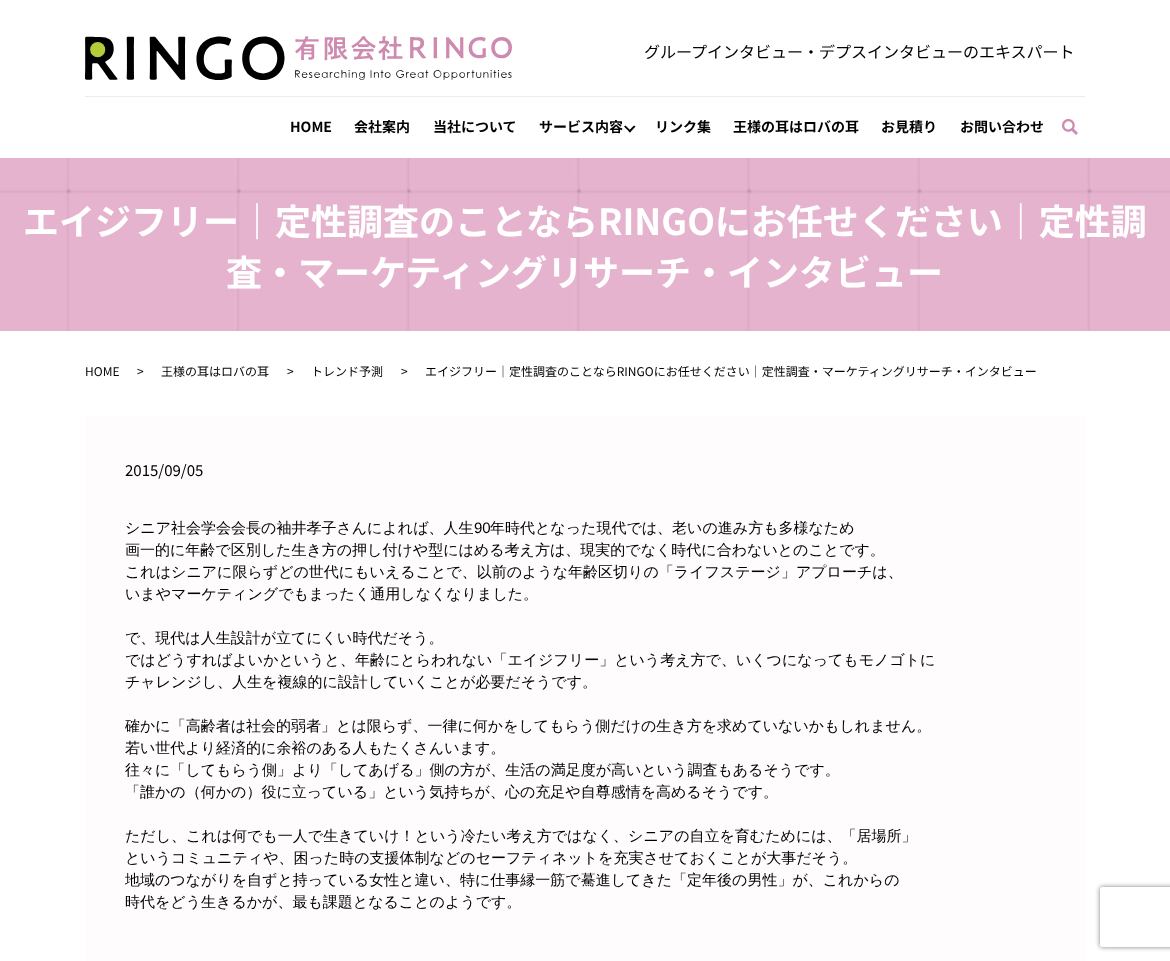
<svg xmlns="http://www.w3.org/2000/svg" width="1170" height="961" viewBox="0 0 1170 961">
  <defs>
    <clipPath id="clip1"><path d="M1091 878H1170V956H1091ZM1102 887H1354C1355 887 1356 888 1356 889V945C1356 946 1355 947 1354 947H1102C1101 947 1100 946 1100 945V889C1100 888 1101 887 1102 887Z" clip-rule="evenodd"/></clipPath>
  </defs>
  <rect width="100%" height="100%" fill="rgb(255,255,255)"/>
  <image x="85" y="36" width="427" height="44" href="pic1.png"/>
  <text x="644" y="58" font-family="Noto Sans JP" font-size="16" fill="rgb(0,0,0)">グループインタビュー・デプスインタビューのエキスパート</text>
  <rect x="85" y="96" width="1000" height="1" fill="rgb(236,236,236)"/>
  <g font-family="Noto Sans JP" font-size="14" font-weight="bold" fill="rgb(0,0,0)">
    <text x="290" y="132">HOME</text>
    <text x="354" y="132">会社案内</text>
    <text x="433" y="132">当社について</text>
    <text x="539" y="132">サービス内容</text>
  </g>
  <path d="M635.5 126.5L630 132.5L628.5 131L634 125.5Z" fill="rgb(0,0,0)"/>
  <path d="M631 131L630 132.5L624 126.5L625.5 125.5Z" fill="rgb(0,0,0)"/>
  <g font-family="Noto Sans JP" font-size="14" font-weight="bold" fill="rgb(0,0,0)">
    <text x="655" y="132">リンク集</text>
    <text x="733" y="132">王様の耳はロバの耳</text>
    <text x="881" y="132">お見積り</text>
    <text x="960" y="132">お問い合わせ</text>
  </g>
  <image x="1062" y="119" width="16" height="16" href="pic2.png"/>
  <image x="0" y="158" width="1170" height="173" href="pic3.png"/>
  <g font-family="Noto Sans JP" font-size="36" font-weight="bold" fill="rgb(255,255,255)">
    <text x="23" y="235">エイジフリー｜定性調査のことならRINGOにお任せください｜定性調</text>
    <text x="226" y="286">査・マーケティングリサーチ・インタビュー</text>
  </g>
  <g font-family="Noto Sans JP" font-size="12" fill="rgb(0,0,0)">
    <text x="85" y="376">HOME</text>
    <text x="137" y="376">&gt;</text>
    <text x="161" y="376">王様の耳はロバの耳</text>
    <text x="287" y="376">&gt;</text>
    <text x="311" y="376">トレンド予測</text>
    <text x="401" y="376">&gt;</text>
    <text x="425" y="376">エイジフリー｜定性調査のことならRINGOにお任せください｜定性調査・マーケティングリサーチ・インタビュー</text>
  </g>
  <rect x="85" y="416" width="1000" height="545" fill="rgb(255,252,253)"/>
  <text x="125" y="476" font-family="Noto Sans JP" font-size="15" fill="rgb(0,0,0)">2015/09/05</text>
  <text x="125" y="533" font-family="WenQuanYi Zen Hei" font-size="15" font-weight="500" fill="rgb(0,0,0)">シニア社会学会会長の袖井孝子さんによれば、人生</text>
  <text x="474" y="533" font-family="Liberation Sans" font-size="15" fill="rgb(0,0,0)">90</text>
  <g font-family="WenQuanYi Zen Hei" font-size="15" font-weight="500" fill="rgb(0,0,0)">
    <text x="490" y="533">年時代となった現代では、老いの進み方も多様なため</text>
    <text>
      <tspan x="125" y="555">画一的に年齢で区別した生き方の押し付けや型にはめる考え方は、現実的でなく時代に合わないとのことです。</tspan>
      <tspan x="125" y="577">これはシニアに限らずどの世代にもいえることで、以前のような年齢区切りの「ライフステージ」アプローチは、</tspan>
      <tspan x="125" y="599">いまやマーケティングでもまったく通用しなくなりました。</tspan>
    </text>
    <text>
      <tspan x="125" y="643">で、現代は人生設計が立てにくい時代だそう。</tspan>
      <tspan x="125" y="665">ではどうすればよいかというと、年齢にとらわれない「エイジフリー」という考え方で、いくつになってもモノゴトに</tspan>
      <tspan x="125" y="687">チャレンジし、人生を複線的に設計していくことが必要だそうです。</tspan>
    </text>
    <text>
      <tspan x="125" y="731">確かに「高齢者は社会的弱者」とは限らず、一律に何かをしてもらう側だけの生き方を求めていないかもしれません。</tspan>
      <tspan x="125" y="753">若い世代より経済的に余裕のある人もたくさんいます。</tspan>
      <tspan x="125" y="775">往々に「してもらう側」より「してあげる」側の方が、生活の満足度が高いという調査もあるそうです。</tspan>
      <tspan x="125" y="797">「誰かの（何かの）役に立っている」という気持ちが、心の充足や自尊感情を高めるそうです。</tspan>
    </text>
    <text>
      <tspan x="125" y="841">ただし、これは何でも一人で生きていけ！という冷たい考え方ではなく、シニアの自立を育むためには、「居場所」</tspan>
      <tspan x="125" y="863">というコミュニティや、困った時の支援体制などのセーフティネットを充実させておくことが大事だそう。</tspan>
      <tspan x="125" y="885">地域のつながりを自ずと持っている女性と違い、特に仕事縁一筋で驀進してきた「定年後の男性」が、これからの</tspan>
      <tspan x="125" y="907">時代をどう生きるかが、最も課題となることのようです。</tspan>
    </text>
  </g>
  <g clip-path="url(#clip1)">
    <rect x="1100" y="887" width="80" height="60" rx="2" fill="rgb(128,128,128)" filter="blur(2.5px)"/>
  </g>
</svg>
